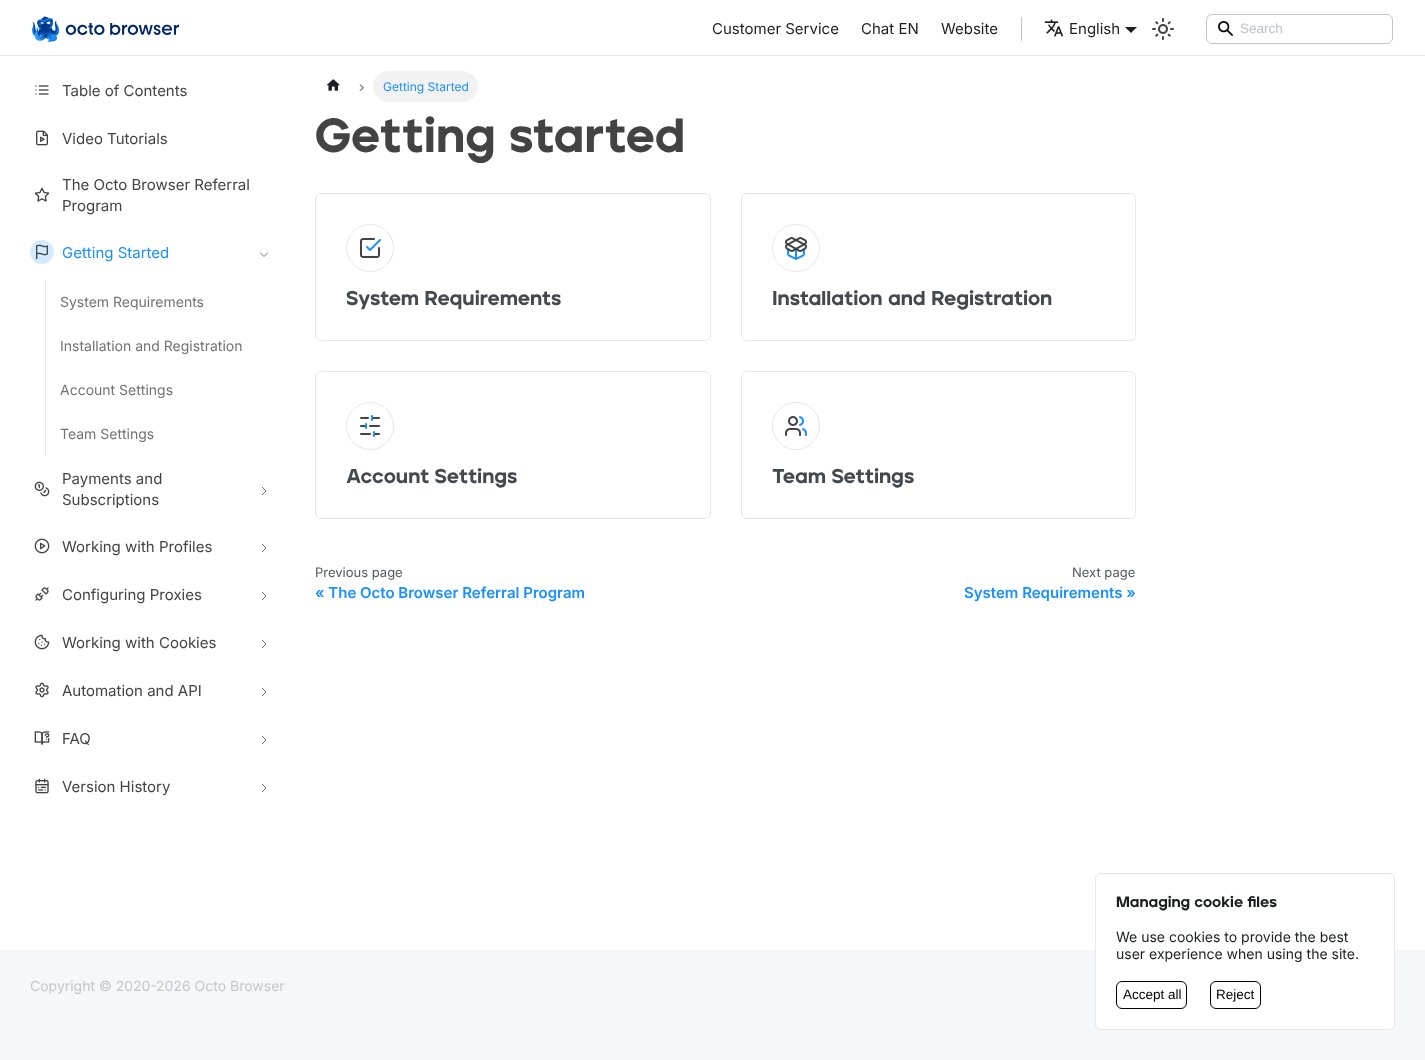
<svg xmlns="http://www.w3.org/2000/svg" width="1425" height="1060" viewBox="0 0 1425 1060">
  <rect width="100%" height="100%" fill="rgb(255,255,255)"/>
  <rect x="0" y="55" width="1425" height="1" fill="rgb(231,231,231)"/>
  <image x="32" y="16" width="147" height="26" href="pic1.png"/>
  <g font-family="Inter" font-size="15" fill="rgb(28,30,33)">
    <text x="712" y="34">Customer Service</text>
    <text x="861" y="34">Chat EN</text>
    <text x="941" y="34">Website</text>
  </g>
  <rect x="1021" y="17" width="1" height="24" fill="rgb(198,198,198)"/>
  <image x="1044" y="19" width="20" height="18" href="pic2.png"/>
  <text x="1069" y="34" font-family="Inter" font-size="15" fill="rgb(28,30,33)">English</text>
  <path d="M1125 27H1137L1131 33Z" fill="rgb(28,30,33)"/>
  <image x="1152" y="18" width="22" height="22" href="pic3.png"/>
  <image x="1218" y="21" width="15" height="15" href="pic4.png"/>
  <rect x="1206.5" y="14.5" width="186" height="29" rx="5.5" fill="none" stroke="rgb(198,198,198)"/>
  <text x="1240" y="33" font-family="Liberation Sans" font-size="13.5" fill="rgb(190,195,201)">Search</text>
  <image x="35" y="85" width="14" height="10" href="pic5.png"/>
  <text x="62" y="96" font-family="Inter" font-size="15" fill="rgb(67,67,67)">Table of Contents</text>
  <image x="36" y="130" width="12" height="16" href="pic6.png"/>
  <g font-family="Inter" font-size="15" fill="rgb(67,67,67)">
    <text x="62" y="144">Video Tutorials</text>
    <text x="62" y="190">The Octo Browser Referral</text>
  </g>
  <image x="34" y="187" width="16" height="15" href="pic7.png"/>
  <text x="62" y="211" font-family="Inter" font-size="15" fill="rgb(67,67,67)">Program</text>
  <circle cx="42" cy="252" r="12" fill="rgb(211,234,255)"/>
  <image x="36" y="244" width="12" height="16" href="pic8.png"/>
  <text x="62" y="258" font-family="Inter" font-size="15" fill="rgb(24,144,255)">Getting Started</text>
  <path d="M260 252.5L264 256.5L268 252.5" fill="none" stroke="rgb(114,114,114)"/>
  <rect x="45" y="280" width="1" height="176" fill="rgb(231,231,231)"/>
  <g font-family="Inter" font-size="14" fill="rgb(114,114,114)">
    <text x="60" y="307">System Requirements</text>
    <text x="60" y="351">Installation and Registration</text>
    <text x="60" y="395">Account Settings</text>
    <text x="60" y="439">Team Settings</text>
  </g>
  <image x="34" y="481" width="16" height="16" href="pic9.png"/>
  <g font-family="Inter" font-size="15" fill="rgb(67,67,67)">
    <text>
      <tspan x="62" y="484">Payments and</tspan>
      <tspan x="62" y="505">Subscriptions</tspan>
    </text>
  </g>
  <path d="M262 495L266 491L262 487" fill="none" stroke="rgb(114,114,114)"/>
  <image x="34" y="538" width="16" height="16" href="pic10.png"/>
  <text x="62" y="552" font-family="Inter" font-size="15" fill="rgb(67,67,67)">Working with Profiles</text>
  <path d="M262 552L266 548L262 544" fill="none" stroke="rgb(114,114,114)"/>
  <image x="35" y="587" width="14" height="14" href="pic11.png"/>
  <text x="62" y="600" font-family="Inter" font-size="15" fill="rgb(67,67,67)">Configuring Proxies</text>
  <path d="M262 600L266 596L262 592" fill="none" stroke="rgb(114,114,114)"/>
  <image x="34" y="634" width="16" height="16" href="pic12.png"/>
  <text x="62" y="648" font-family="Inter" font-size="15" fill="rgb(67,67,67)">Working with Cookies</text>
  <path d="M262 648L266 644L262 640" fill="none" stroke="rgb(114,114,114)"/>
  <image x="35" y="682" width="14" height="16" href="pic13.png"/>
  <text x="62" y="696" font-family="Inter" font-size="15" fill="rgb(67,67,67)">Automation and API</text>
  <path d="M262 696L266 692L262 688" fill="none" stroke="rgb(114,114,114)"/>
  <image x="34" y="731" width="16" height="14" href="pic14.png"/>
  <text x="62" y="744" font-family="Inter" font-size="15" fill="rgb(67,67,67)">FAQ</text>
  <path d="M262 744L266 740L262 736" fill="none" stroke="rgb(114,114,114)"/>
  <image x="35" y="778" width="14" height="16" href="pic15.png"/>
  <text x="62" y="792" font-family="Inter" font-size="15" fill="rgb(67,67,67)">Version History</text>
  <path d="M262 792L266 788L262 784" fill="none" stroke="rgb(114,114,114)"/>
  <image x="327" y="79" width="13" height="12" href="pic16.png"/>
  <image x="359" y="84" width="5" height="7" href="pic17.png"/>
  <rect x="373" y="71" width="105" height="31" rx="15.5" fill="rgb(242,242,242)"/>
  <text x="383" y="91" font-family="Inter" font-size="12" fill="rgb(24,144,255)">Getting Started</text>
  <text x="315" y="152" font-family="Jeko" font-size="48" font-weight="900" fill="rgb(67,67,67)">Getting started</text>
  <rect x="315.5" y="193.5" width="395" height="147" rx="5.5" fill="none" stroke="rgb(231,231,231)"/>
  <circle cx="370" cy="248" r="23.5" fill="none" stroke="rgb(231,231,231)"/>
  <image x="360" y="238" width="21" height="20" href="pic18.png"/>
  <text x="346" y="305" font-family="Jeko" font-size="20" font-weight="900" fill="rgb(68,73,80)">System Requirements</text>
  <rect x="741.5" y="193.5" width="394" height="147" rx="5.5" fill="none" stroke="rgb(231,231,231)"/>
  <circle cx="796" cy="248" r="23.5" fill="none" stroke="rgb(231,231,231)"/>
  <image x="785" y="237" width="22" height="23" href="pic19.png"/>
  <text x="772" y="305" font-family="Jeko" font-size="20" font-weight="900" fill="rgb(68,73,80)">Installation and Registration</text>
  <rect x="315.5" y="371.5" width="395" height="147" rx="5.5" fill="none" stroke="rgb(231,231,231)"/>
  <circle cx="370" cy="426" r="23.5" fill="none" stroke="rgb(231,231,231)"/>
  <image x="360" y="415" width="20" height="22" href="pic20.png"/>
  <text x="346" y="483" font-family="Jeko" font-size="20" font-weight="900" fill="rgb(68,73,80)">Account Settings</text>
  <rect x="741.5" y="371.5" width="394" height="147" rx="5.5" fill="none" stroke="rgb(231,231,231)"/>
  <circle cx="796" cy="426" r="23.5" fill="none" stroke="rgb(231,231,231)"/>
  <image x="785" y="416" width="22" height="20" href="pic21.png"/>
  <text x="772" y="483" font-family="Jeko" font-size="20" font-weight="900" fill="rgb(68,73,80)">Team Settings</text>
  <text x="315" y="577" font-family="Inter" font-size="13" fill="rgb(82,88,96)">Previous page</text>
  <text x="315" y="598" font-family="Inter" font-size="15" font-weight="600" fill="rgb(24,144,255)">« The Octo Browser Referral Program</text>
  <text x="1072" y="577" font-family="Inter" font-size="13" fill="rgb(82,88,96)">Next page</text>
  <text x="964" y="598" font-family="Inter" font-size="15" font-weight="600" fill="rgb(24,144,255)">System Requirements »</text>
  <rect x="0" y="950" width="1425" height="110" fill="rgb(246,247,250)"/>
  <g font-family="Inter" font-size="14" fill="rgb(198,198,198)">
    <text x="30" y="991">Copyright © 2020-</text>
    <text x="156" y="991">2026 Octo Browser</text>
  </g>
  <rect x="1095.5" y="873.5" width="299" height="156" rx="5.5" fill="rgb(255,255,255)" stroke="rgb(231,231,231)"/>
  <text x="1116" y="907" font-family="Jeko" font-size="15" font-weight="900" fill="rgb(28,30,33)">Managing cookie files</text>
  <g font-family="Inter" font-size="14" fill="rgb(28,30,33)">
    <text>
      <tspan x="1116" y="942">We use cookies to provide the best</tspan>
      <tspan x="1116" y="959">user experience when using the site.</tspan>
    </text>
  </g>
  <rect x="1116.5" y="981.5" width="70" height="27" rx="5.5" fill="none" stroke="rgb(0,0,0)"/>
  <text x="1123" y="999" font-family="Liberation Sans" font-size="13.5" fill="rgb(0,0,0)">Accept all</text>
  <rect x="1210.5" y="981.5" width="50" height="27" rx="5.5" fill="none" stroke="rgb(0,0,0)"/>
  <text x="1216" y="999" font-family="Liberation Sans" font-size="13.5" fill="rgb(0,0,0)">Reject</text>
</svg>
